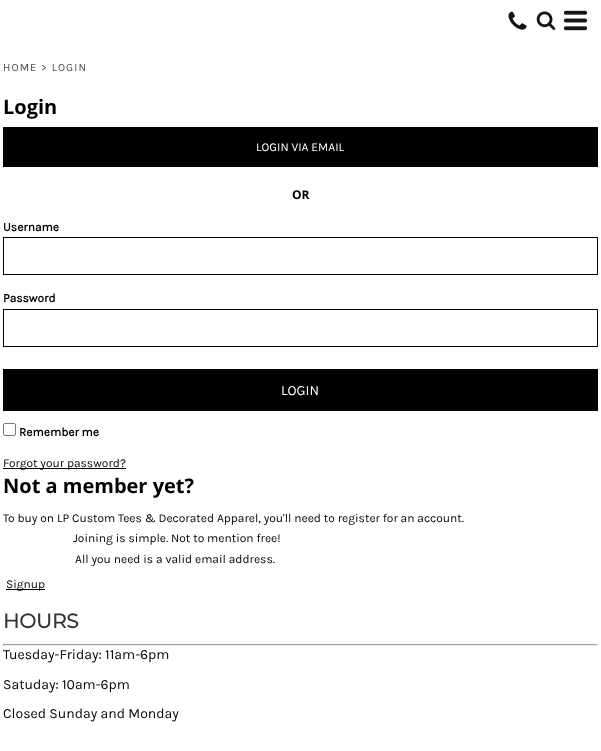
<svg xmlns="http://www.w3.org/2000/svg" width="601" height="751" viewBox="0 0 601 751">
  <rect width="100%" height="100%" fill="rgb(255,255,255)"/>
  <text x="506" y="33" font-family="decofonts" font-size="23" fill="rgb(20,21,21)">;</text>
  <image x="536" y="11" width="20" height="19" href="pic1.png"/>
  <image x="563" y="10" width="25" height="21" href="pic2.png"/>
  <text x="3" y="71" font-family="Karla" font-size="11" letter-spacing="1.1" fill="rgb(77,77,77)">HOME &gt; LOGIN</text>
  <text x="3" y="114" font-family="Open Sans" font-size="20" font-weight="bold" fill="rgb(0,0,0)">Login</text>
  <rect x="3" y="127" width="595" height="40" fill="rgb(0,0,0)"/>
  <text x="256" y="151" font-family="Karla" font-size="12" fill="rgb(255,255,255)">LOGIN VIA EMAIL</text>
  <text x="292" y="199" font-family="Open Sans" font-size="12" font-weight="bold" fill="rgb(0,0,0)">OR</text>
  <text x="3" y="231" font-family="Karla" font-size="12" font-weight="bold" fill="rgb(0,0,0)">Username</text>
  <rect x="3.5" y="237.5" width="594" height="37" fill="none" stroke="rgb(0,0,0)"/>
  <text x="3" y="302" font-family="Karla" font-size="12" font-weight="bold" fill="rgb(0,0,0)">Password</text>
  <rect x="3.5" y="309.5" width="594" height="37" fill="none" stroke="rgb(0,0,0)"/>
  <rect x="3" y="369" width="595" height="42" fill="rgb(0,0,0)"/>
  <text x="281" y="395" font-family="Karla" font-size="14" fill="rgb(255,255,255)">LOGIN</text>
  <rect x="3.5" y="423.5" width="12" height="12" rx="1.5" fill="none" stroke="rgb(118,118,118)"/>
  <text x="19" y="436" font-family="Karla" font-size="12" font-weight="bold" fill="rgb(0,0,0)">Remember me</text>
  <rect x="3" y="468" width="123" height="1" fill="rgb(0,0,0)"/>
  <text x="3" y="467" font-family="Karla" font-size="12" fill="rgb(0,0,0)">Forgot your password?</text>
  <text x="3" y="493" font-family="Open Sans" font-size="20" font-weight="bold" fill="rgb(0,0,0)">Not a member yet?</text>
  <g font-family="Karla" font-size="12" fill="rgb(0,0,0)">
    <text x="3" y="522">To buy on LP Custom Tees &amp; Decorated Apparel, you'll need to register for an account.</text>
    <text x="73" y="542">Joining is simple. Not to mention free!</text>
    <text x="75" y="563">All you need is a valid email address.</text>
  </g>
  <rect x="6" y="589" width="39" height="1" fill="rgb(0,0,0)"/>
  <text x="6" y="588" font-family="Karla" font-size="12" fill="rgb(0,0,0)">Signup</text>
  <text x="3" y="628" font-family="Montserrat" font-size="20" font-weight="bold" fill="rgb(51,51,51)">HOURS</text>
  <rect x="3" y="644" width="595" height="1" fill="rgb(159,159,159)"/>
  <rect x="597" y="644" width="1" height="2" fill="rgb(238,238,238)"/>
  <rect x="3" y="645" width="595" height="1" fill="rgb(238,238,238)"/>
  <rect x="3" y="644" width="1" height="2" fill="rgb(159,159,159)"/>
  <g font-family="Karla" font-size="14" fill="rgb(0,0,0)">
    <text x="3" y="659">Tuesday-Friday: 11am-6pm</text>
    <text x="3" y="689">Satuday: 10am-6pm</text>
    <text x="3" y="718">Closed Sunday and Monday</text>
  </g>
</svg>
